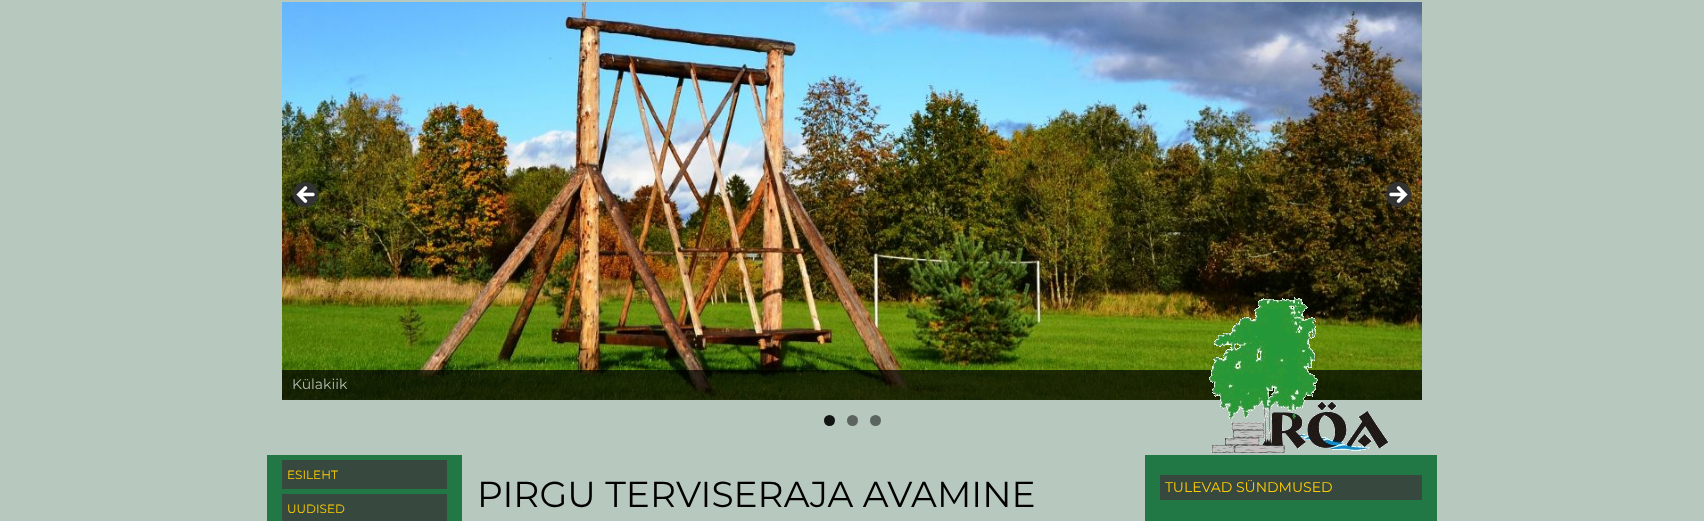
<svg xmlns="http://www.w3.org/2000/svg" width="1704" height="521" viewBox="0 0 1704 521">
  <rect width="100%" height="100%" fill="rgb(183,200,190)"/>
  <image x="282" y="2" width="1140" height="398" href="pic3.png"/>
  <image x="293" y="182" width="25" height="25" href="pic1.png"/>
  <image x="1386" y="182" width="25" height="25" href="pic2.png"/>
  <rect x="282" y="370" width="1140" height="30" fill="rgba(0,0,0,0.7)"/>
  <text x="292" y="389" font-family="Montserrat" font-size="14" fill="rgb(185,188,179)">Külakiik</text>
  <circle cx="829.5" cy="420.5" r="5.5" fill="rgb(18,20,19)"/>
  <circle cx="852.5" cy="420.5" r="5.5" fill="rgb(92,100,95)"/>
  <circle cx="875.5" cy="420.5" r="5.5" fill="rgb(92,100,95)"/>
  <image x="1209" y="297" width="180" height="156" href="pic4.png"/>
  <rect x="267" y="455" width="195" height="66" fill="rgb(33,120,68)"/>
  <rect x="282" y="460" width="165" height="29" fill="rgb(55,72,62)"/>
  <text x="287" y="479" font-family="Montserrat" font-size="12" fill="rgb(255,204,0)">ESILEHT</text>
  <rect x="282" y="494" width="165" height="27" fill="rgb(55,72,62)"/>
  <text x="287" y="513" font-family="Montserrat" font-size="12" fill="rgb(255,204,0)">UUDISED</text>
  <text x="477" y="507" font-family="Montserrat" font-size="36" fill="rgb(0,0,0)">PIRGU TERVISERAJA AVAMINE</text>
  <rect x="1145" y="455" width="292" height="66" fill="rgb(33,120,68)"/>
  <rect x="1160" y="475" width="262" height="25" fill="rgb(55,72,62)"/>
  <text x="1165" y="492" font-family="Montserrat" font-size="14" fill="rgb(255,204,0)">TULEVAD SÜNDMUSED</text>
</svg>
